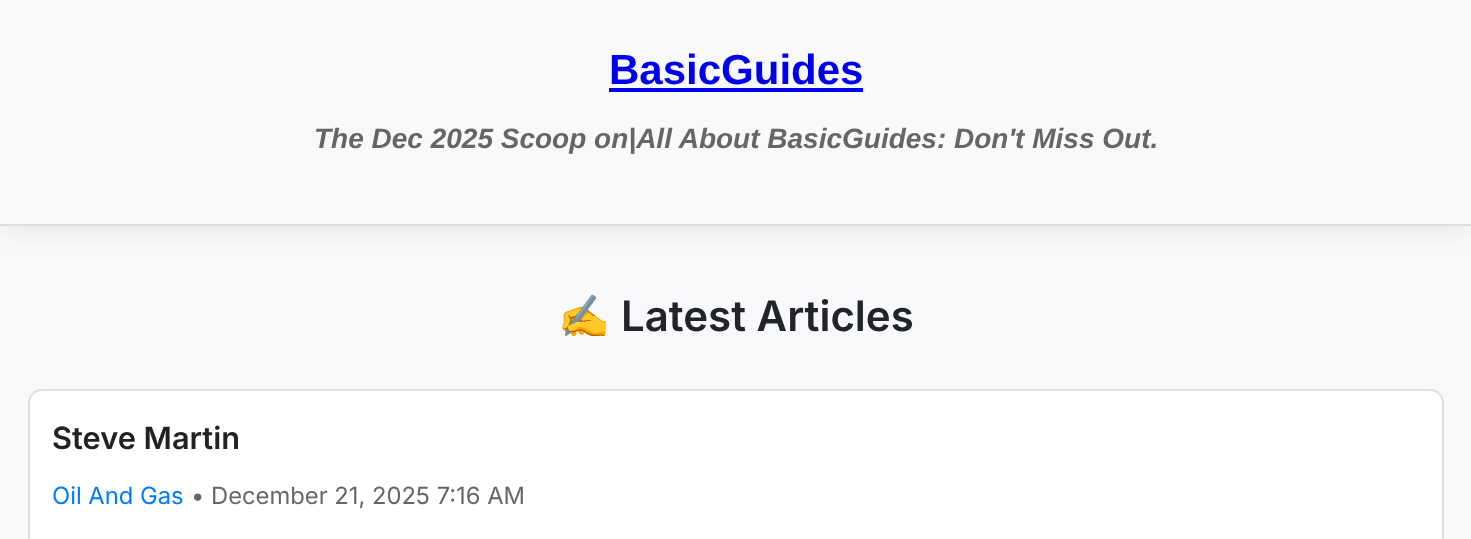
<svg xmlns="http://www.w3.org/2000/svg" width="1471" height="539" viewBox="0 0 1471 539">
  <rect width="100%" height="100%" fill="rgb(249,249,251)"/>
  <rect x="0" y="7" width="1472" height="226" fill="rgba(0,0,0,0.06)" filter="blur(10.5px)"/>
  <rect x="0" y="0" width="1471" height="224" fill="rgb(248,249,250)"/>
  <rect x="0" y="224" width="1471" height="2" fill="rgb(221,221,221)"/>
  <text x="609" y="84" font-family="Liberation Sans" font-size="42" font-weight="bold" fill="rgb(0,0,238)">BasicGuides</text>
  <rect x="609" y="88" width="254" height="4" fill="rgb(0,0,238)"/>
  <text x="314" y="148" font-family="Liberation Sans" font-size="28" font-weight="bold" font-style="italic" fill="rgb(102,102,102)">The Dec 2025 Scoop on|All About BasicGuides: Don't Miss Out.</text>
  <text x="558" y="331" font-family="Noto Color Emoji" font-size="42" font-weight="bold" fill="rgb(33,37,41)">✍️</text>
  <text x="621" y="331" font-family="Inter" font-size="42" font-weight="600" fill="rgb(33,37,41)">Latest Articles</text>
  <rect x="29" y="390" width="1414" height="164" rx="13" fill="rgb(255,255,255)" stroke="rgb(224,224,224)" stroke-width="2"/>
  <text x="52" y="449" font-family="Inter" font-size="30.75" font-weight="600" fill="rgb(34,34,34)">Steve Martin</text>
  <text x="52" y="504" font-family="Inter" font-size="23.75" fill="rgb(0,123,255)">Oil And Gas</text>
  <text x="191" y="504" font-family="Inter" font-size="23.75" fill="rgb(102,102,102)">• December 21, 2025 7:16 AM</text>
</svg>
